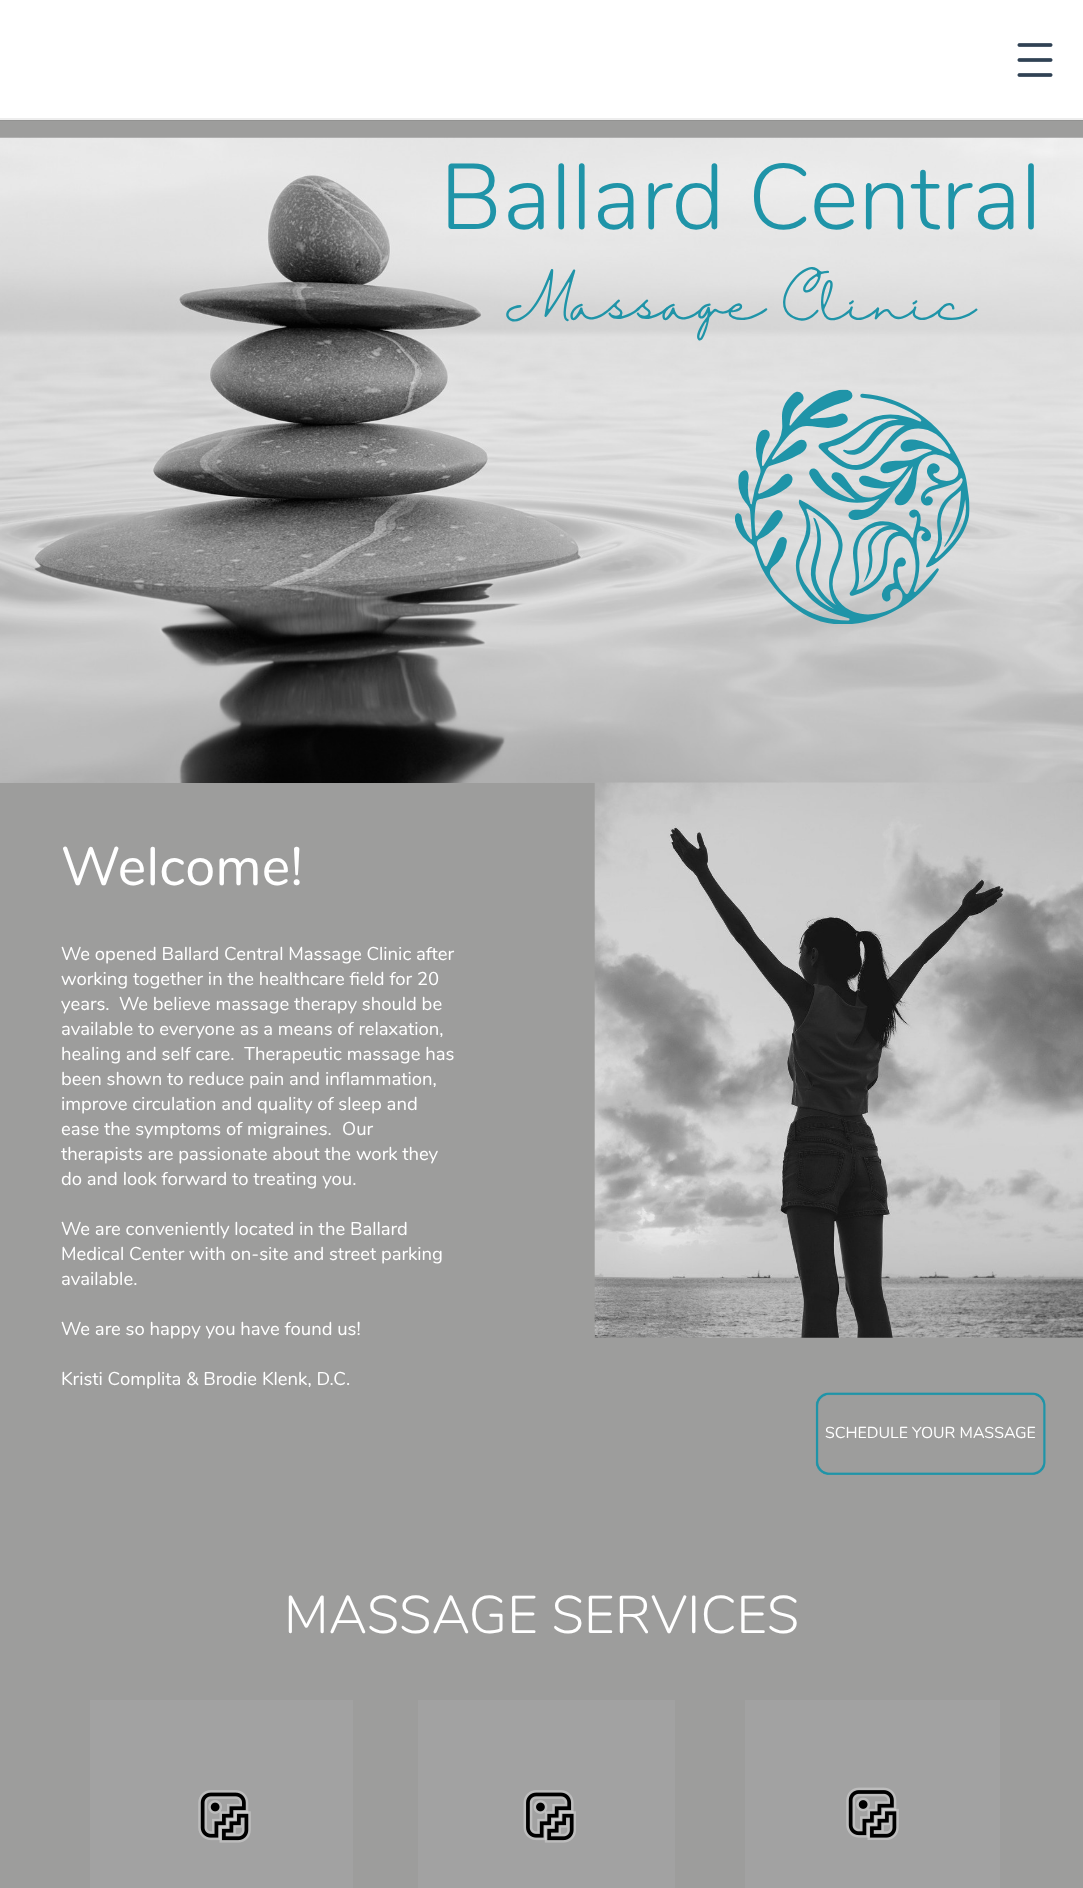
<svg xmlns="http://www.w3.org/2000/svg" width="1083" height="1888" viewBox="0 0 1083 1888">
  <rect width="100%" height="100%" fill="rgb(255,255,255)"/>
  <rect x="0" y="118" width="1083" height="2" fill="rgb(237,237,237)"/>
  <image x="1017" y="43" width="36" height="34" href="pic1.png"/>
  <rect x="0" y="121" width="1083" height="17" fill="rgb(157,157,156)"/>
  <rect x="0" y="120" width="1083" height="1" fill="rgb(146,146,145)"/>
  <image x="0" y="137" width="1083" height="646" href="pic2.png"/>
  <text x="440" y="229" font-family="Nunito" font-size="92.75" font-weight="300" fill="rgb(31,148,168)">Ballard Central</text>
  <text x="504" y="320" font-family="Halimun" font-size="44.4" fill="rgb(31,148,168)">Massage Clinic</text>
  <image x="735" y="389" width="235" height="235" href="pic3.png"/>
  <rect x="0" y="783" width="1083" height="1105" fill="rgb(157,157,156)"/>
  <image x="594" y="782" width="489" height="556" href="pic4.png"/>
  <text x="61" y="885" font-family="Nunito" font-size="54" letter-spacing="0.25" fill="rgb(255,255,255)">Welcome!</text>
  <g font-family="Nunito" font-size="18.5" fill="rgb(255,255,255)">
    <text>
      <tspan x="61" y="960">We opened Ballard Central Massage Clinic after</tspan>
      <tspan x="61" y="985">working together in the healthcare field for 20</tspan>
      <tspan x="61" y="1010">years.</tspan>
    </text>
    <text x="119" y="1010">We believe massage therapy should be</text>
    <text>
      <tspan x="61" y="1035">available to everyone as a means of relaxation,</tspan>
      <tspan x="61" y="1060">healing and self care.</tspan>
    </text>
    <text x="244" y="1060">Therapeutic massage has</text>
    <text>
      <tspan x="61" y="1085">been shown to reduce pain and inflammation,</tspan>
      <tspan x="61" y="1110">improve circulation and quality of sleep and</tspan>
      <tspan x="61" y="1135">ease the symptoms of migraines.</tspan>
    </text>
    <text x="342" y="1135">Our</text>
    <text>
      <tspan x="61" y="1160">therapists are passionate about the work they</tspan>
      <tspan x="61" y="1185">do and look forward to treating you.</tspan>
    </text>
    <text>
      <tspan x="61" y="1235">We are conveniently located in the Ballard</tspan>
      <tspan x="61" y="1260">Medical Center with on-site and street parking</tspan>
      <tspan x="61" y="1285">available.</tspan>
    </text>
    <text x="61" y="1335">We are so happy you have found us!</text>
    <text x="61" y="1385">Kristi Complita &amp; Brodie Klenk, D.C.</text>
  </g>
  <image x="815" y="1392" width="231" height="83" href="pic5.png"/>
  <text x="825" y="1438" font-family="Nunito" font-size="15.9" fill="rgb(255,255,255)">SCHEDULE YOUR MASSAGE</text>
  <text x="284" y="1633" font-family="Nunito" font-size="53" font-weight="300" letter-spacing="0.25" fill="rgb(255,255,255)">MASSAGE SERVICES</text>
  <rect x="90" y="1700" width="263" height="188" fill="rgb(162,162,162)"/>
  <image x="198" y="1790" width="53" height="53" href="pic6.png"/>
  <rect x="418" y="1700" width="257" height="188" fill="rgb(162,162,162)"/>
  <image x="523" y="1790" width="53" height="53" href="pic7.png"/>
  <rect x="745" y="1700" width="255" height="188" fill="rgb(162,162,162)"/>
  <image x="846" y="1787" width="53" height="53" href="pic8.png"/>
</svg>
